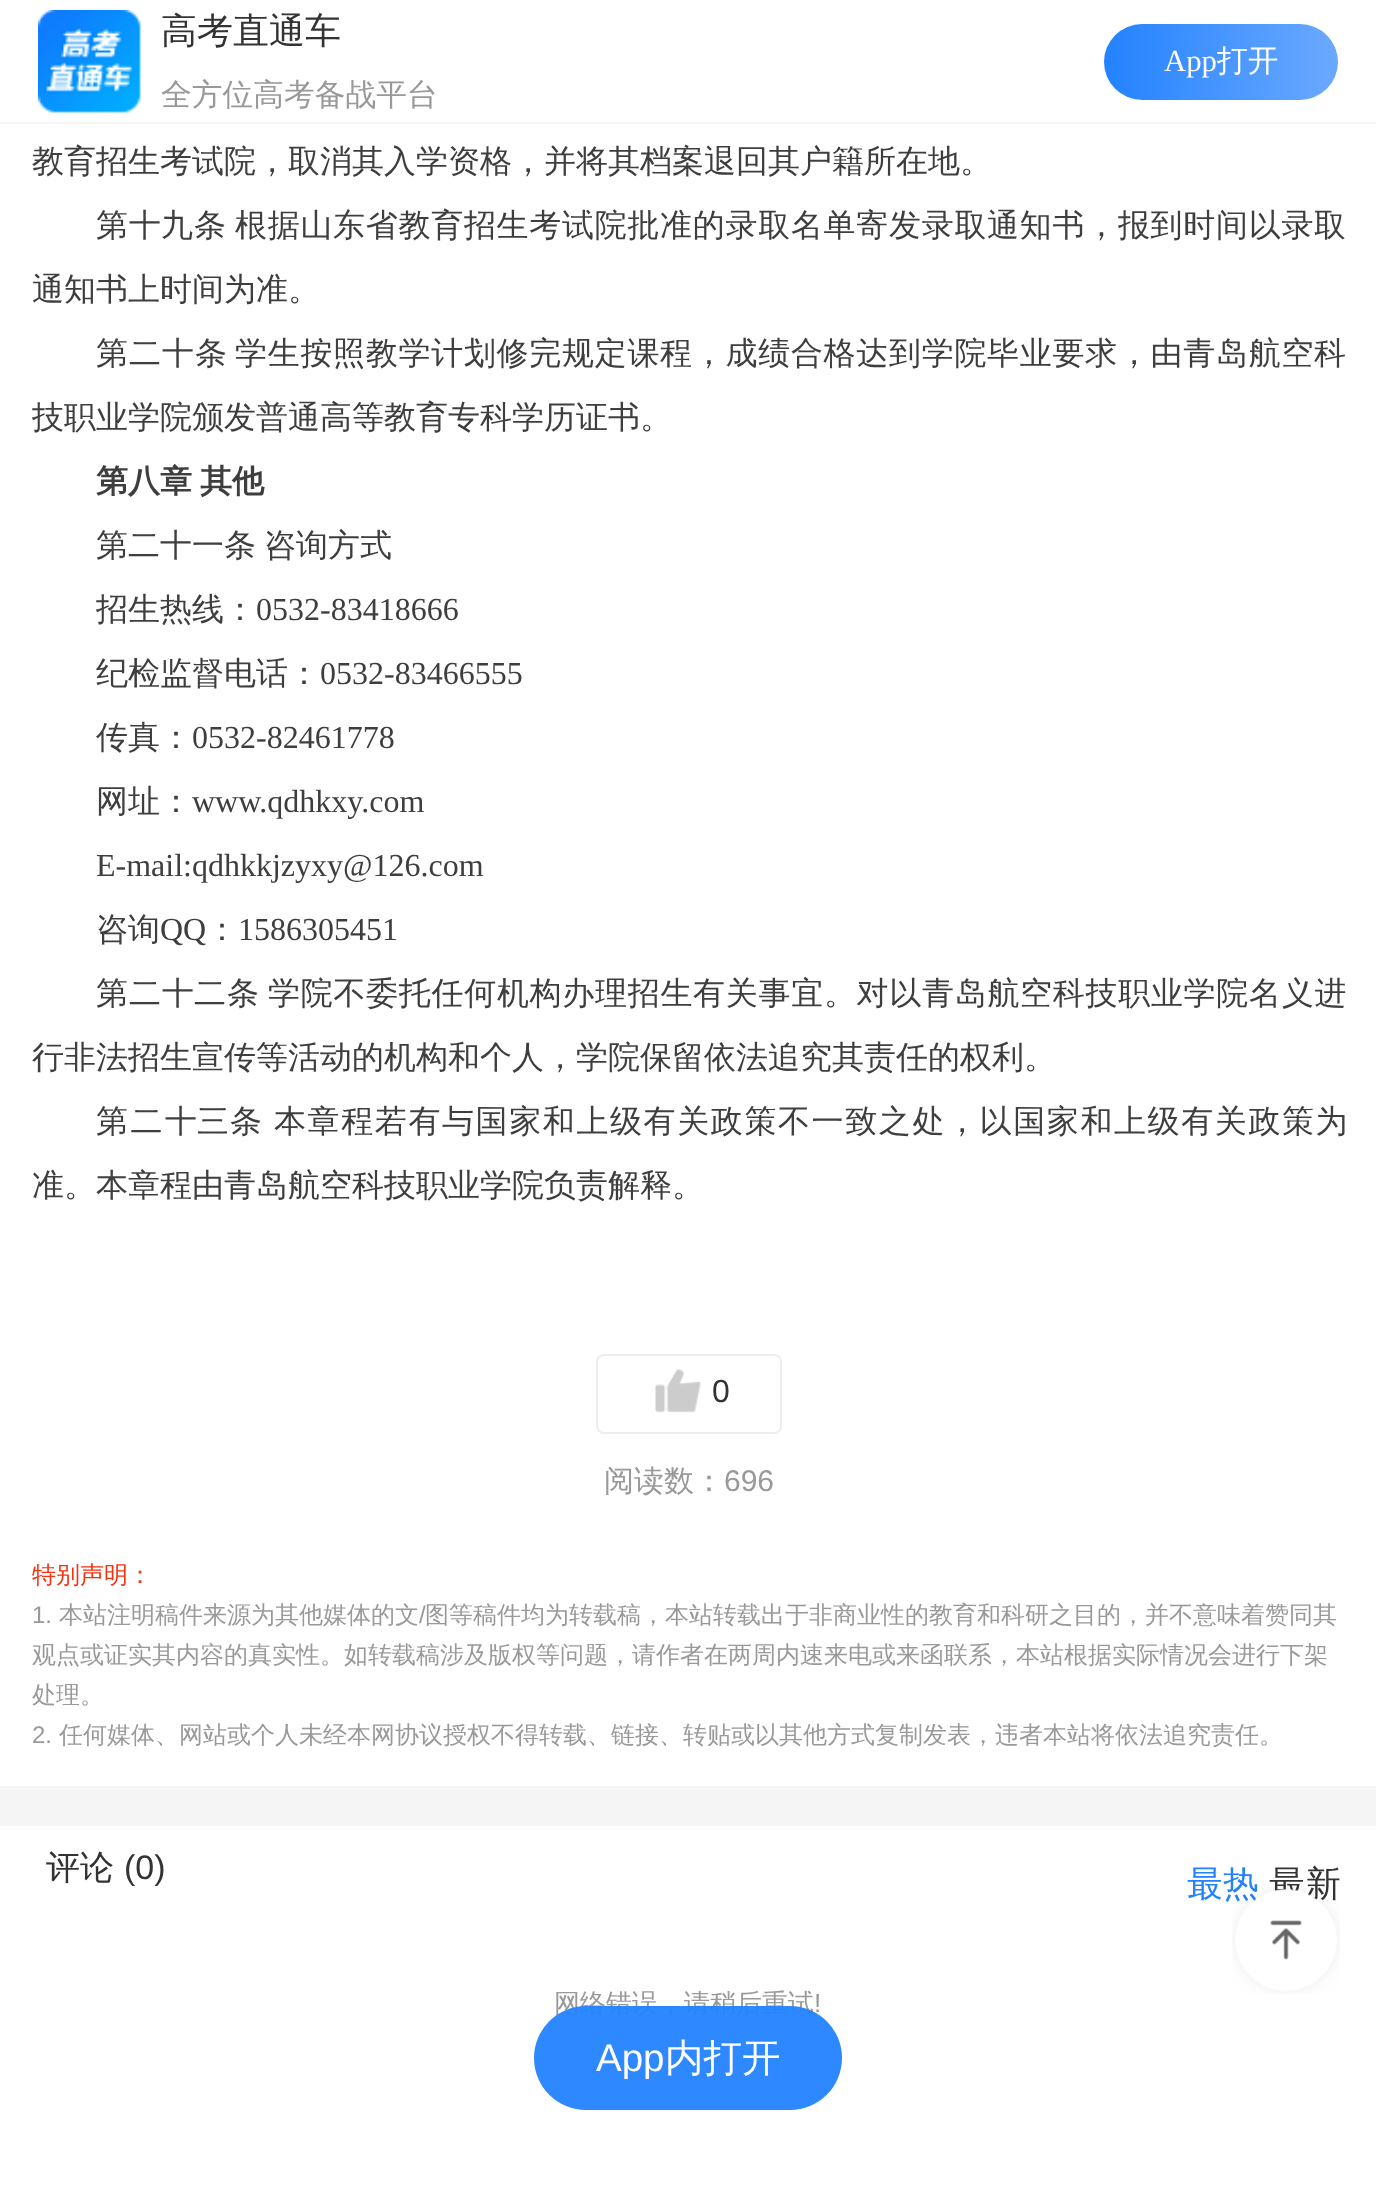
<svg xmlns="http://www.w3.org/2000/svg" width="1376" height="2185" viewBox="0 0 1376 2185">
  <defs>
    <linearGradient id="g1" gradientUnits="userSpaceOnUse" x1="1338" y1="62" x2="1104" y2="62"><stop offset="0" stop-color="rgb(107,169,255)"/><stop offset="1" stop-color="rgb(35,130,255)"/></linearGradient>
  </defs>
  <rect width="100%" height="100%" fill="rgb(255,255,255)"/>
  <rect x="0" y="122" width="1376" height="2" fill="rgb(245,245,245)"/>
  <image x="38" y="10" width="103" height="103" href="pic1.png"/>
  <text x="161" y="43" font-family="WenQuanYi Zen Hei" font-size="36" font-weight="500" fill="rgb(51,51,51)">高考直通车</text>
  <text x="161" y="105" font-family="WenQuanYi Zen Hei" font-size="30.75" font-weight="500" fill="rgb(153,153,153)">全方位高考备战平台</text>
  <rect x="1104" y="24" width="234" height="76" rx="38" fill="url(#g1)"/>
  <text x="1164" y="71" font-family="Liberation Serif" font-size="30.75" fill="rgb(255,255,255)">App</text>
  <text x="1217" y="71" font-family="WenQuanYi Zen Hei" font-size="30.75" font-weight="500" fill="rgb(255,255,255)">打开</text>
  <rect x="0" y="1786" width="1376" height="40" fill="rgb(245,245,245)"/>
  <g font-family="WenQuanYi Zen Hei" font-size="32" font-weight="500" fill="rgb(62,62,62)">
    <text x="32" y="172">教育招生考试院，取消其入学资格，并将其档案退回其户籍所在地。</text>
    <text x="96" y="236">第</text>
    <text x="129" y="236">十九</text>
    <text x="194" y="236">条</text>
  </g>
  <text x="235" y="236" font-family="WenQuanYi Zen Hei" font-size="32" font-weight="500" letter-spacing="0.7" fill="rgb(62,62,62)">根据山东省教育招生考试院批准的录取名单寄发录取通知书，报到时间以录取</text>
  <text x="32" y="300" font-family="WenQuanYi Zen Hei" font-size="32" font-weight="500" fill="rgb(62,62,62)">通知书上时间为准。</text>
  <text x="96" y="364" font-family="WenQuanYi Zen Hei" font-size="32" font-weight="500" letter-spacing="1" fill="rgb(62,62,62)">第二十条</text>
  <text x="235" y="364" font-family="WenQuanYi Zen Hei" font-size="32" font-weight="500" letter-spacing="0.7" fill="rgb(62,62,62)">学生按照教学计划修完规定课程，成绩合格达到学院毕业要求，由青岛航空科</text>
  <text x="32" y="428" font-family="WenQuanYi Zen Hei" font-size="32" font-weight="500" fill="rgb(62,62,62)">技职业学院颁发普通高等教育专科学历证书。</text>
  <g font-family="WenQuanYi Zen Hei" font-size="32" font-weight="bold" fill="rgb(62,62,62)">
    <text x="96" y="492">第八章</text>
    <text x="200" y="492">其他</text>
  </g>
  <g font-family="WenQuanYi Zen Hei" font-size="32" font-weight="500" fill="rgb(62,62,62)">
    <text x="96" y="556">第二十一条</text>
    <text x="264" y="556">咨询方式</text>
    <text x="96" y="620">招生热线：</text>
  </g>
  <text x="256" y="620" font-family="Liberation Serif" font-size="32" fill="rgb(62,62,62)">0532-83418666</text>
  <text x="96" y="684" font-family="WenQuanYi Zen Hei" font-size="32" font-weight="500" fill="rgb(62,62,62)">纪检监督电话：</text>
  <text x="320" y="684" font-family="Liberation Serif" font-size="32" fill="rgb(62,62,62)">0532-83466555</text>
  <text x="96" y="748" font-family="WenQuanYi Zen Hei" font-size="32" font-weight="500" fill="rgb(62,62,62)">传真：</text>
  <text x="192" y="748" font-family="Liberation Serif" font-size="32" fill="rgb(62,62,62)">0532-82461778</text>
  <text x="96" y="812" font-family="WenQuanYi Zen Hei" font-size="32" font-weight="500" fill="rgb(62,62,62)">网址：</text>
  <g font-family="Liberation Serif" font-size="32" fill="rgb(62,62,62)">
    <text x="192" y="812">www.qdhkxy.com</text>
    <text x="96" y="876">E-mail:qdhkkjzyxy@126.com</text>
  </g>
  <text x="96" y="940" font-family="WenQuanYi Zen Hei" font-size="32" font-weight="500" fill="rgb(62,62,62)">咨询</text>
  <text x="160" y="940" font-family="Liberation Serif" font-size="32" fill="rgb(62,62,62)">QQ</text>
  <text x="206" y="940" font-family="WenQuanYi Zen Hei" font-size="32" font-weight="500" fill="rgb(62,62,62)">：</text>
  <text x="238" y="940" font-family="Liberation Serif" font-size="32" fill="rgb(62,62,62)">1586305451</text>
  <text x="96" y="1004" font-family="WenQuanYi Zen Hei" font-size="32" font-weight="500" letter-spacing="1" fill="rgb(62,62,62)">第二十</text>
  <g font-family="WenQuanYi Zen Hei" font-size="32" font-weight="500" fill="rgb(62,62,62)">
    <text x="194" y="1004">二</text>
    <text x="227" y="1004">条</text>
  </g>
  <text x="268" y="1004" font-family="WenQuanYi Zen Hei" font-size="32" font-weight="500" letter-spacing="0.7" fill="rgb(62,62,62)">学院不委托任何机构办理招生有关事宜。对以青岛航空科技职业学院名义进</text>
  <text x="32" y="1068" font-family="WenQuanYi Zen Hei" font-size="32" font-weight="500" fill="rgb(62,62,62)">行非法招生宣传等活动的机构和个人，学院保留依法追究其责任的权利。</text>
  <text x="96" y="1132" font-family="WenQuanYi Zen Hei" font-size="32" font-weight="500" letter-spacing="2.5" fill="rgb(62,62,62)">第二十</text>
  <g font-family="WenQuanYi Zen Hei" font-size="32" font-weight="500" fill="rgb(62,62,62)">
    <text x="197" y="1132">三</text>
    <text x="230" y="1132">条</text>
  </g>
  <text x="274" y="1132" font-family="WenQuanYi Zen Hei" font-size="32" font-weight="500" letter-spacing="1.6" fill="rgb(62,62,62)">本章程若有与国家和上级有关政策不一致之处，以国家和上级有关政策为</text>
  <text x="32" y="1196" font-family="WenQuanYi Zen Hei" font-size="32" font-weight="500" fill="rgb(62,62,62)">准。本章程由青岛航空科技职业学院负责解释。</text>
  <rect x="597" y="1355" width="184" height="78" rx="7" fill="none" stroke="rgb(237,237,237)" stroke-width="2"/>
  <image x="655" y="1369" width="46" height="44" href="pic2.png"/>
  <text x="712" y="1402" font-family="Liberation Sans" font-size="32" fill="rgb(51,51,51)">0</text>
  <text x="604" y="1491" font-family="WenQuanYi Zen Hei" font-size="30" font-weight="500" fill="rgb(153,153,153)">阅读数：</text>
  <text x="724" y="1491" font-family="Liberation Sans" font-size="30" fill="rgb(153,153,153)">696</text>
  <text x="32" y="1583" font-family="WenQuanYi Zen Hei" font-size="24" font-weight="500" fill="rgb(245,49,18)">特别声明：</text>
  <text x="32" y="1623" font-family="Liberation Sans" font-size="24" fill="rgb(153,153,153)">1.</text>
  <text x="59" y="1623" font-family="WenQuanYi Zen Hei" font-size="24" font-weight="500" fill="rgb(153,153,153)">本站注明稿件来源为其他媒体的文</text>
  <text x="419" y="1623" font-family="Liberation Sans" font-size="24" fill="rgb(153,153,153)">/</text>
  <g font-family="WenQuanYi Zen Hei" font-size="24" font-weight="500" fill="rgb(153,153,153)">
    <text x="425" y="1623">图等稿件均为转载稿，本站转载出于非商业性的教育和科研之目的，并不意味着赞同其</text>
    <text>
      <tspan x="32" y="1663">观点或证实其内容的真实性。如转载稿涉及版权等问题，请作者在两周内速来电或来函联系，本站根据实际情况会进行下架</tspan>
      <tspan x="32" y="1703">处理。</tspan>
    </text>
  </g>
  <text x="32" y="1743" font-family="Liberation Sans" font-size="24" fill="rgb(153,153,153)">2.</text>
  <text x="59" y="1743" font-family="WenQuanYi Zen Hei" font-size="24" font-weight="500" fill="rgb(153,153,153)">任何媒体、网站或个人未经本网协议授权不得转载、链接、转贴或以其他方式复制发表，违者本站将依法追究责任。</text>
  <text x="46" y="1879" font-family="WenQuanYi Zen Hei" font-size="34" font-weight="500" fill="rgb(51,51,51)">评论</text>
  <text x="124" y="1879" font-family="Liberation Sans" font-size="34" fill="rgb(51,51,51)">(0)</text>
  <text x="1187" y="1896" font-family="WenQuanYi Zen Hei" font-size="36" font-weight="500" fill="rgb(35,130,255)">最热</text>
  <text x="1269" y="1896" font-family="WenQuanYi Zen Hei" font-size="36" font-weight="500" fill="rgb(51,51,51)">最新</text>
  <text x="554" y="2012" font-family="WenQuanYi Zen Hei" font-size="26" font-weight="500" fill="rgb(153,153,153)">网络错误，请稍后重试</text>
  <text x="814" y="2012" font-family="Liberation Sans" font-size="26" fill="rgb(153,153,153)">!</text>
  <image x="1232" y="1886" width="108" height="108" href="pic3.png"/>
  <rect x="534" y="2006" width="308" height="104" rx="52" fill="rgba(35,130,255,0.95)"/>
  <text x="596" y="2071" font-family="Liberation Sans" font-size="38.5" fill="rgb(255,255,255)">App</text>
  <text x="665" y="2071" font-family="WenQuanYi Zen Hei" font-size="38.5" font-weight="500" fill="rgb(255,255,255)">内打开</text>
</svg>
